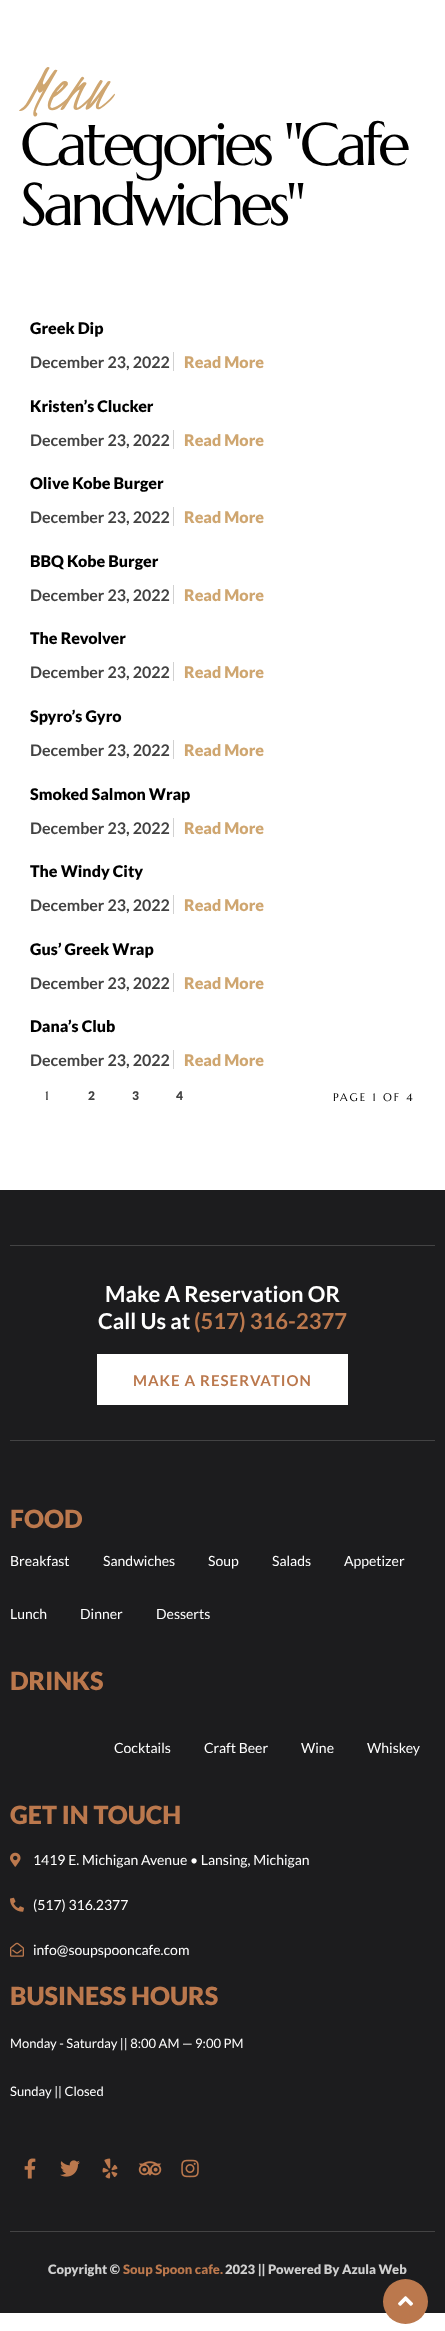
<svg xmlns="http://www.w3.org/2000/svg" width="445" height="2331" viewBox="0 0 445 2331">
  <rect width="100%" height="100%" fill="rgb(255,255,255)"/>
  <text x="20" y="109" font-family="Kristi" font-size="70" font-style="italic" fill="rgb(207,166,112)">Menu</text>
  <g font-family="Marcellus" font-size="60" letter-spacing="-4" fill="rgb(0,0,0)">
    <text>
      <tspan x="20" y="165">Categories "Cafe</tspan>
      <tspan x="20" y="225">Sandwiches"</tspan>
    </text>
  </g>
  <text x="30" y="334" font-family="Lato" font-size="16" font-weight="900" fill="rgb(0,0,0)">Greek Dip</text>
  <text x="30" y="368" font-family="Lato" font-size="16" font-weight="bold" fill="rgb(66,66,66)">December 23, 2022</text>
  <text x="184" y="368" font-family="Lato" font-size="16" font-weight="900" fill="rgb(207,166,112)">Read More</text>
  <rect x="173" y="352" width="1" height="19" fill="rgb(209,209,209)"/>
  <text x="30" y="412" font-family="Lato" font-size="16" font-weight="900" fill="rgb(0,0,0)">Kristen’s Clucker</text>
  <text x="30" y="446" font-family="Lato" font-size="16" font-weight="bold" fill="rgb(66,66,66)">December 23, 2022</text>
  <text x="184" y="446" font-family="Lato" font-size="16" font-weight="900" fill="rgb(207,166,112)">Read More</text>
  <rect x="173" y="430" width="1" height="19" fill="rgb(209,209,209)"/>
  <text x="30" y="489" font-family="Lato" font-size="16" font-weight="900" fill="rgb(0,0,0)">Olive Kobe Burger</text>
  <text x="30" y="523" font-family="Lato" font-size="16" font-weight="bold" fill="rgb(66,66,66)">December 23, 2022</text>
  <text x="184" y="523" font-family="Lato" font-size="16" font-weight="900" fill="rgb(207,166,112)">Read More</text>
  <rect x="173" y="507" width="1" height="19" fill="rgb(209,209,209)"/>
  <text x="30" y="567" font-family="Lato" font-size="16" font-weight="900" fill="rgb(0,0,0)">BBQ Kobe Burger</text>
  <text x="30" y="601" font-family="Lato" font-size="16" font-weight="bold" fill="rgb(66,66,66)">December 23, 2022</text>
  <text x="184" y="601" font-family="Lato" font-size="16" font-weight="900" fill="rgb(207,166,112)">Read More</text>
  <rect x="173" y="585" width="1" height="19" fill="rgb(209,209,209)"/>
  <text x="30" y="644" font-family="Lato" font-size="16" font-weight="900" fill="rgb(0,0,0)">The Revolver</text>
  <text x="30" y="678" font-family="Lato" font-size="16" font-weight="bold" fill="rgb(66,66,66)">December 23, 2022</text>
  <text x="184" y="678" font-family="Lato" font-size="16" font-weight="900" fill="rgb(207,166,112)">Read More</text>
  <rect x="173" y="662" width="1" height="19" fill="rgb(209,209,209)"/>
  <text x="30" y="722" font-family="Lato" font-size="16" font-weight="900" fill="rgb(0,0,0)">Spyro’s Gyro</text>
  <text x="30" y="756" font-family="Lato" font-size="16" font-weight="bold" fill="rgb(66,66,66)">December 23, 2022</text>
  <text x="184" y="756" font-family="Lato" font-size="16" font-weight="900" fill="rgb(207,166,112)">Read More</text>
  <rect x="173" y="740" width="1" height="19" fill="rgb(209,209,209)"/>
  <text x="30" y="800" font-family="Lato" font-size="16" font-weight="900" fill="rgb(0,0,0)">Smoked Salmon Wrap</text>
  <text x="30" y="834" font-family="Lato" font-size="16" font-weight="bold" fill="rgb(66,66,66)">December 23, 2022</text>
  <text x="184" y="834" font-family="Lato" font-size="16" font-weight="900" fill="rgb(207,166,112)">Read More</text>
  <rect x="173" y="818" width="1" height="19" fill="rgb(209,209,209)"/>
  <text x="30" y="877" font-family="Lato" font-size="16" font-weight="900" fill="rgb(0,0,0)">The Windy City</text>
  <text x="30" y="911" font-family="Lato" font-size="16" font-weight="bold" fill="rgb(66,66,66)">December 23, 2022</text>
  <text x="184" y="911" font-family="Lato" font-size="16" font-weight="900" fill="rgb(207,166,112)">Read More</text>
  <rect x="173" y="895" width="1" height="19" fill="rgb(209,209,209)"/>
  <text x="30" y="955" font-family="Lato" font-size="16" font-weight="900" fill="rgb(0,0,0)">Gus’ Greek Wrap</text>
  <text x="30" y="989" font-family="Lato" font-size="16" font-weight="bold" fill="rgb(66,66,66)">December 23, 2022</text>
  <text x="184" y="989" font-family="Lato" font-size="16" font-weight="900" fill="rgb(207,166,112)">Read More</text>
  <rect x="173" y="973" width="1" height="19" fill="rgb(209,209,209)"/>
  <text x="30" y="1032" font-family="Lato" font-size="16" font-weight="900" fill="rgb(0,0,0)">Dana’s Club</text>
  <text x="30" y="1066" font-family="Lato" font-size="16" font-weight="bold" fill="rgb(66,66,66)">December 23, 2022</text>
  <text x="184" y="1066" font-family="Lato" font-size="16" font-weight="900" fill="rgb(207,166,112)">Read More</text>
  <rect x="173" y="1050" width="1" height="19" fill="rgb(209,209,209)"/>
  <text x="45" y="1100" font-family="Marcellus" font-size="12" font-weight="bold" fill="rgb(66,66,66)">1</text>
  <g font-family="Lato" font-size="12" font-weight="900" fill="rgb(66,66,66)">
    <text x="88" y="1100">2</text>
    <text x="132" y="1100">3</text>
    <text x="176" y="1100">4</text>
  </g>
  <text x="333" y="1101" font-family="Marcellus" font-size="11" letter-spacing="2" fill="rgb(0,0,0)">PAGE 1 OF 4</text>
  <rect x="0" y="1190" width="445" height="1123" fill="rgb(28,28,30)"/>
  <rect x="10" y="1245" width="425" height="1" fill="rgb(67,67,68)"/>
  <g font-family="Lato" font-size="22" font-weight="bold" fill="rgb(255,255,255)">
    <text x="105" y="1302">Make A Reservation OR</text>
    <text x="98" y="1329">Call Us at</text>
  </g>
  <text x="194" y="1329" font-family="Lato" font-size="22" font-weight="bold" fill="rgb(187,120,77)">(517) 316-2377</text>
  <rect x="97" y="1354" width="251" height="51" fill="rgb(255,255,255)"/>
  <text x="133" y="1386" font-family="Lato" font-size="15" font-weight="bold" letter-spacing="1" fill="rgb(187,120,77)">MAKE A RESERVATION</text>
  <rect x="10" y="1440" width="425" height="1" fill="rgb(67,67,68)"/>
  <text x="10" y="1528" font-family="Lato" font-size="25" font-weight="900" fill="rgb(187,120,77)">FOOD</text>
  <g font-family="Lato" font-size="14" fill="rgb(255,255,255)">
    <text x="10" y="1566">Breakfast</text>
    <text x="103" y="1566">Sandwiches</text>
    <text x="208" y="1566">Soup</text>
    <text x="272" y="1566">Salads</text>
    <text x="344" y="1566">Appetizer</text>
    <text x="10" y="1619">Lunch</text>
    <text x="80" y="1619">Dinner</text>
    <text x="156" y="1619">Desserts</text>
  </g>
  <text x="10" y="1690" font-family="Lato" font-size="25" font-weight="900" fill="rgb(187,120,77)">DRINKS</text>
  <g font-family="Lato" font-size="14" fill="rgb(255,255,255)">
    <text x="114" y="1753">Cocktails</text>
    <text x="204" y="1753">Craft Beer</text>
    <text x="301" y="1753">Wine</text>
    <text x="367" y="1753">Whiskey</text>
  </g>
  <text x="10" y="1824" font-family="Lato" font-size="25" font-weight="900" fill="rgb(187,120,77)">GET IN TOUCH</text>
  <image x="10" y="1852" width="11" height="15" href="pic1.png"/>
  <text x="33" y="1865" font-family="Lato" font-size="14" fill="rgb(255,255,255)">1419 E. Michigan Avenue • Lansing, Michigan</text>
  <image x="10" y="1897" width="14" height="15" href="pic2.png"/>
  <text x="33" y="1910" font-family="Lato" font-size="14" fill="rgb(255,255,255)">(517) 316.2377</text>
  <image x="10" y="1942" width="14" height="15" href="pic3.png"/>
  <text x="33" y="1955" font-family="Lato" font-size="14" fill="rgb(255,255,255)">info@soupspooncafe.com</text>
  <text x="10" y="2005" font-family="Lato" font-size="25" font-weight="900" fill="rgb(187,120,77)">BUSINESS HOURS</text>
  <g font-family="Lato" font-size="13" fill="rgb(255,255,255)">
    <text x="10" y="2048">Monday - Saturday || 8:00 AM — 9:00 PM</text>
    <text x="10" y="2096">Sunday || Closed</text>
  </g>
  <image x="24" y="2158" width="12" height="21" href="pic4.png"/>
  <image x="60" y="2160" width="20" height="17" href="pic5.png"/>
  <image x="102" y="2158" width="16" height="21" href="pic6.png"/>
  <image x="138" y="2161" width="24" height="15" href="pic7.png"/>
  <image x="181" y="2159" width="18" height="19" href="pic8.png"/>
  <rect x="10" y="2231" width="425" height="1" fill="rgb(67,67,68)"/>
  <text x="48" y="2274" font-family="Lato" font-size="13" font-weight="900" fill="rgb(207,207,207)">Copyright ©</text>
  <text x="123" y="2274" font-family="Lato" font-size="13" font-weight="900" fill="rgb(187,120,77)">Soup Spoon cafe.</text>
  <text x="225" y="2274" font-family="Lato" font-size="13" font-weight="900" fill="rgb(207,207,207)">2023 || Powered By Azula Web</text>
  <circle cx="405.5" cy="2301.5" r="22.5" fill="rgb(187,120,77)"/>
  <image x="398" y="2296" width="15" height="10" href="pic9.png"/>
</svg>
